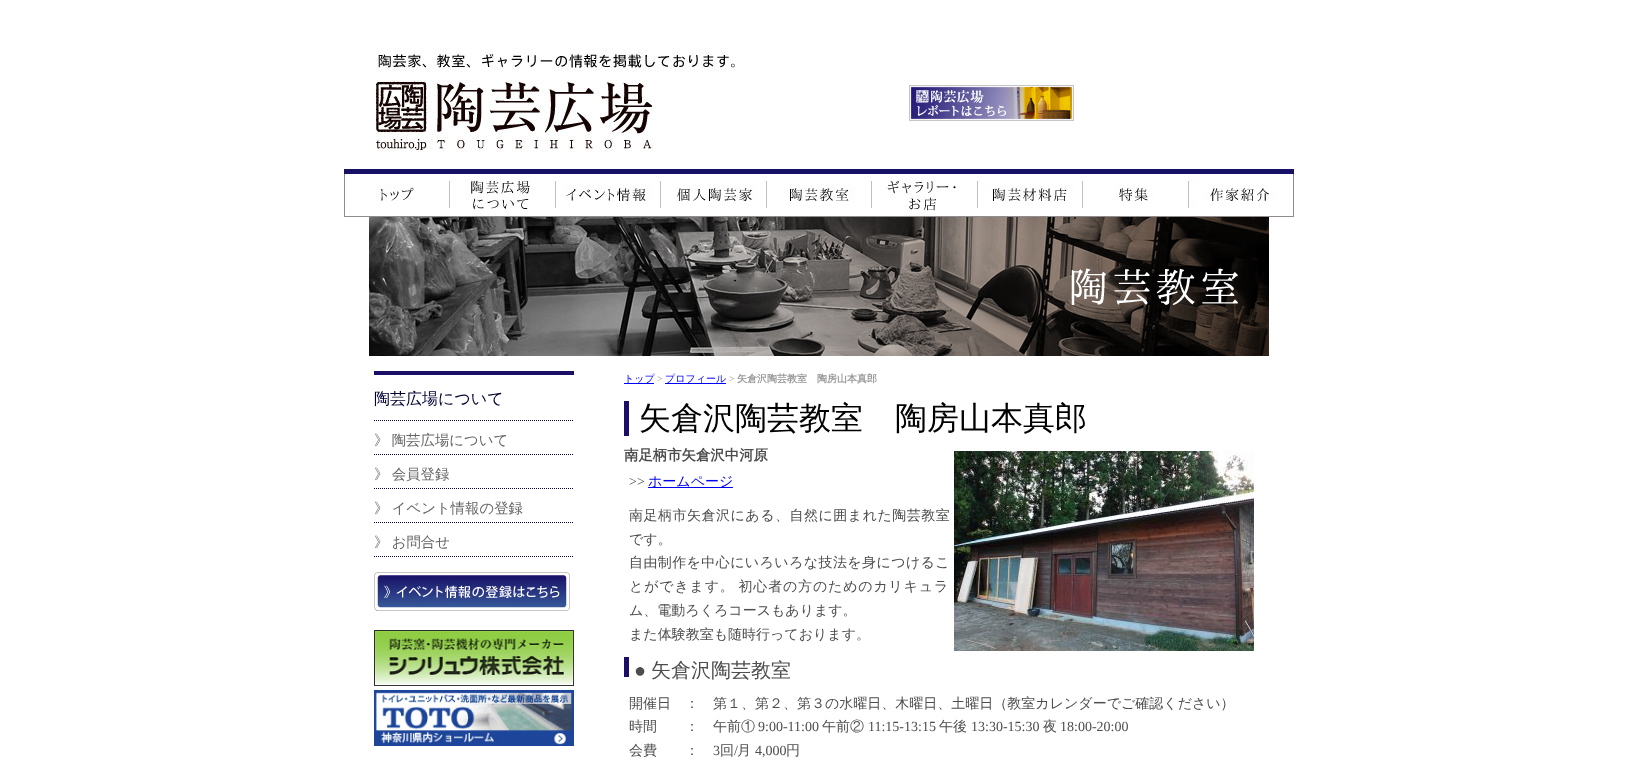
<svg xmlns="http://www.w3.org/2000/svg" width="1637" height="766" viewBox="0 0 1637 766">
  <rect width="100%" height="100%" fill="rgb(255,255,255)"/>
  <image x="376" y="48" width="360" height="104" href="pic1.png"/>
  <image x="909" y="85" width="165" height="36" href="pic2.png"/>
  <image x="344" y="169" width="105" height="48" href="pic3.png"/>
  <image x="449" y="169" width="107" height="48" href="pic4.png"/>
  <image x="556" y="169" width="105" height="48" href="pic5.png"/>
  <image x="661" y="169" width="106" height="48" href="pic6.png"/>
  <image x="767" y="169" width="105" height="48" href="pic7.png"/>
  <image x="872" y="169" width="106" height="48" href="pic8.png"/>
  <image x="978" y="169" width="105" height="48" href="pic9.png"/>
  <image x="1083" y="169" width="105" height="48" href="pic10.png"/>
  <image x="1188" y="169" width="106" height="48" href="pic11.png"/>
  <image x="369" y="217" width="900" height="139" href="pic12.png"/>
  <rect x="374" y="371" width="200" height="4" fill="rgb(25,15,102)"/>
  <path d="M374 420.5H574" fill="none" stroke="rgb(0,0,51)" stroke-dasharray="1 1"/>
  <text x="374" y="404" font-family="WenQuanYi Zen Hei" font-size="16" font-weight="500" fill="rgb(0,0,51)">陶芸広場について</text>
  <path d="M374 454.5H574" fill="none" stroke="rgb(0,0,51)" stroke-dasharray="1 1"/>
  <text x="374" y="445" word-spacing="-1" font-family="WenQuanYi Zen Hei" font-size="14.4" font-weight="500" fill="rgb(102,102,102)">》 陶芸広場について</text>
  <path d="M374 488.5H574" fill="none" stroke="rgb(0,0,51)" stroke-dasharray="1 1"/>
  <text x="374" y="479" word-spacing="-1" font-family="WenQuanYi Zen Hei" font-size="14.4" font-weight="500" fill="rgb(102,102,102)">》 会員登録</text>
  <path d="M374 522.5H574" fill="none" stroke="rgb(0,0,51)" stroke-dasharray="1 1"/>
  <text x="374" y="513" word-spacing="-1" font-family="WenQuanYi Zen Hei" font-size="14.4" font-weight="500" fill="rgb(102,102,102)">》 イベント情報の登録</text>
  <path d="M374 556.5H574" fill="none" stroke="rgb(0,0,51)" stroke-dasharray="1 1"/>
  <text x="374" y="547" word-spacing="-1" font-family="WenQuanYi Zen Hei" font-size="14.4" font-weight="500" fill="rgb(102,102,102)">》 お問合せ</text>
  <image x="374" y="572" width="196" height="39" href="pic13.png"/>
  <image x="374" y="630" width="200" height="56" href="pic14.png"/>
  <image x="374" y="690" width="200" height="56" href="pic15.png"/>
  <rect x="624" y="383" width="30" height="1" fill="rgb(0,0,255)"/>
  <text x="624" y="382" font-family="WenQuanYi Zen Hei" font-size="10" font-weight="500" fill="rgb(0,0,255)">トップ</text>
  <text x="657" y="382" font-family="Liberation Serif" font-size="10" fill="rgb(153,153,153)">&gt;</text>
  <rect x="665" y="383" width="61" height="1" fill="rgb(0,0,255)"/>
  <text x="665" y="382" font-family="WenQuanYi Zen Hei" font-size="10" font-weight="500" fill="rgb(0,0,255)">プロフィール</text>
  <text x="729" y="382" font-family="Liberation Serif" font-size="10" fill="rgb(153,153,153)">&gt;</text>
  <text x="737" y="382" font-family="WenQuanYi Zen Hei" font-size="10" font-weight="bold" fill="rgb(153,153,153)">矢倉沢陶芸教室　陶房山本真郎</text>
  <rect x="624" y="401" width="5" height="35" fill="rgb(25,15,102)"/>
  <text x="639" y="429" font-family="WenQuanYi Zen Hei" font-size="32" font-weight="500" fill="rgb(0,0,0)">矢倉沢陶芸教室　陶房山本真郎</text>
  <text x="624" y="460" font-family="WenQuanYi Zen Hei" font-size="14.4" font-weight="bold" fill="rgb(77,77,77)">南足柄市矢倉沢中河原</text>
  <image x="954" y="451" width="300" height="200" href="pic16.png"/>
  <text x="629" y="486" font-family="Liberation Serif" font-size="14" fill="rgb(77,77,77)">&gt;&gt;</text>
  <rect x="648" y="487" width="85" height="1" fill="rgb(0,0,238)"/>
  <text x="648" y="486" font-family="WenQuanYi Zen Hei" font-size="14" font-weight="500" fill="rgb(0,0,238)">ホームページ</text>
  <text x="629" y="520" font-family="WenQuanYi Zen Hei" font-size="14" font-weight="500" letter-spacing="0.5" fill="rgb(77,77,77)">南足柄市矢倉沢にある、自然に囲まれた陶芸教室</text>
  <text x="629" y="544" font-family="WenQuanYi Zen Hei" font-size="14" font-weight="500" fill="rgb(77,77,77)">です。</text>
  <text x="629" y="567" font-family="WenQuanYi Zen Hei" font-size="14" font-weight="500" letter-spacing="0.4" fill="rgb(77,77,77)">自由制作を中心にいろいろな技法を身につけるこ</text>
  <text x="629" y="591" word-spacing="-1" font-family="WenQuanYi Zen Hei" font-size="14" font-weight="500" letter-spacing="0.8" fill="rgb(77,77,77)">とができます。 初心者の方のためのカリキュラ</text>
  <g font-family="WenQuanYi Zen Hei" font-size="14" font-weight="500" fill="rgb(77,77,77)">
    <text>
      <tspan x="629" y="615">ム、電動ろくろコースもあります。</tspan>
      <tspan x="629" y="639">また体験教室も随時行っております。</tspan>
    </text>
  </g>
  <rect x="624" y="657" width="5" height="20" fill="rgb(25,15,102)"/>
  <text x="634" y="677" font-family="Liberation Serif" font-size="20" fill="rgb(77,77,77)">●</text>
  <text x="651" y="677" font-family="WenQuanYi Zen Hei" font-size="20" font-weight="500" fill="rgb(77,77,77)">矢倉沢陶芸教室</text>
  <g font-family="WenQuanYi Zen Hei" font-size="14" font-weight="500" fill="rgb(77,77,77)">
    <text>
      <tspan x="629" y="708">開催日　：　第１、第２、第３の水曜日、木曜日、土曜日（教室カレンダーでご確認ください）</tspan>
      <tspan x="629" y="731">時間　　：　午前①</tspan>
    </text>
  </g>
  <text x="758" y="731" font-family="Liberation Serif" font-size="14" fill="rgb(77,77,77)">9:00-11:00</text>
  <text x="822" y="731" font-family="WenQuanYi Zen Hei" font-size="14" font-weight="500" fill="rgb(77,77,77)">午前②</text>
  <text x="868" y="731" font-family="Liberation Serif" font-size="14" fill="rgb(77,77,77)">11:15-13:15</text>
  <text x="939" y="731" font-family="WenQuanYi Zen Hei" font-size="14" font-weight="500" fill="rgb(77,77,77)">午後</text>
  <text x="971" y="731" font-family="Liberation Serif" font-size="14" fill="rgb(77,77,77)">13:30-15:30</text>
  <text x="1043" y="731" font-family="WenQuanYi Zen Hei" font-size="14" font-weight="500" fill="rgb(77,77,77)">夜</text>
  <text x="1060" y="731" font-family="Liberation Serif" font-size="14" fill="rgb(77,77,77)">18:00-20:00</text>
  <text x="629" y="755" font-family="WenQuanYi Zen Hei" font-size="14" font-weight="500" fill="rgb(77,77,77)">会費　　：</text>
  <text x="713" y="755" font-family="Liberation Serif" font-size="14" fill="rgb(77,77,77)">3</text>
  <text x="720" y="755" font-family="WenQuanYi Zen Hei" font-size="14" font-weight="500" fill="rgb(77,77,77)">回</text>
  <text x="734" y="755" font-family="Liberation Serif" font-size="14" fill="rgb(77,77,77)">/</text>
  <text x="737" y="755" font-family="WenQuanYi Zen Hei" font-size="14" font-weight="500" fill="rgb(77,77,77)">月</text>
  <text x="755" y="755" font-family="Liberation Serif" font-size="14" fill="rgb(77,77,77)">4,000</text>
  <text x="786" y="755" font-family="WenQuanYi Zen Hei" font-size="14" font-weight="500" fill="rgb(77,77,77)">円</text>
</svg>
